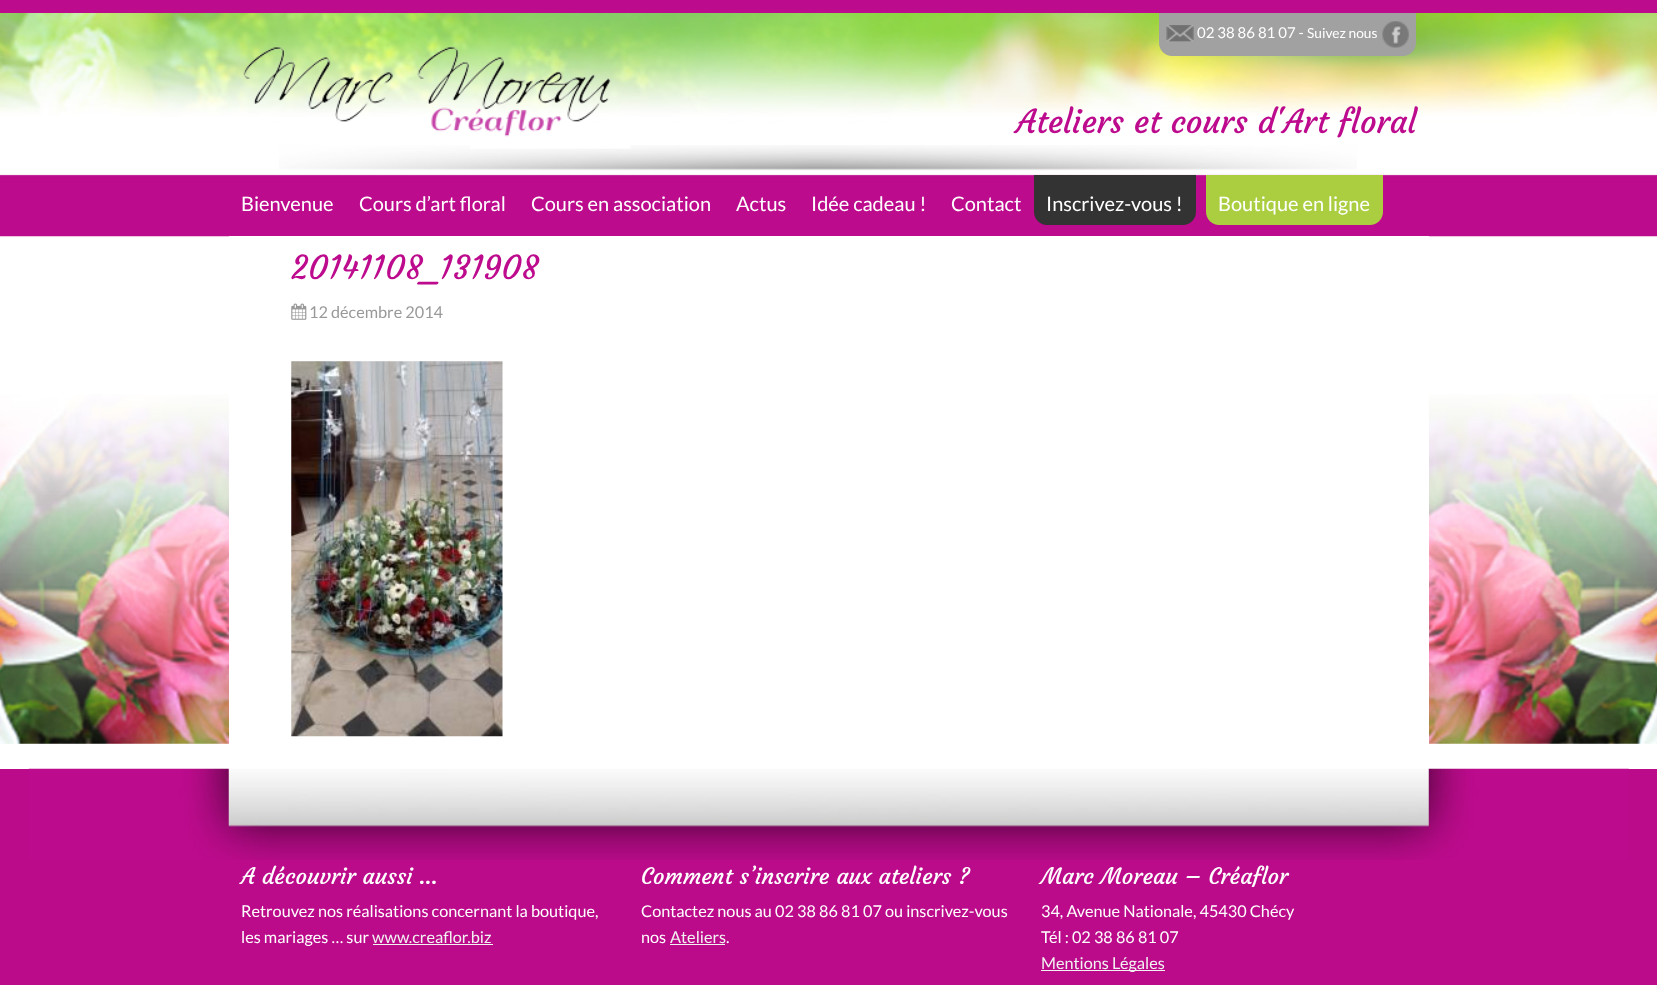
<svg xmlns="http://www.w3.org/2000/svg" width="1657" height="985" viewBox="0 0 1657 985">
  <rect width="100%" height="100%" fill="rgb(255,255,255)"/>
  <image x="0" y="13" width="1657" height="224" href="pic1.png"/>
  <rect x="0" y="0" width="1657" height="13" fill="rgb(189,11,141)"/>
  <image x="279" y="145" width="1078" height="26" href="pic2.png"/>
  <path d="M1159 13H1416V43C1416 50 1410 56 1403 56H1172C1165 56 1159 50 1159 43Z" fill="rgb(161,161,161)"/>
  <image x="1166" y="25" width="28" height="17" href="pic3.png"/>
  <text x="1197" y="38" font-family="Lato" font-size="15" fill="rgb(255,255,255)">02 38 86 81 07 -</text>
  <text x="1307" y="38" font-family="Lato" font-size="13.75" fill="rgb(255,255,255)">Suivez nous</text>
  <image x="1382" y="21" width="27" height="27" href="pic4.png"/>
  <image x="243" y="46" width="368" height="91" href="pic5.png"/>
  <text x="1016" y="133" font-family="Courgette" font-size="32.5" fill="rgb(189,11,141)">Ateliers et cours d'Art floral</text>
  <g font-family="Lato" font-size="20" fill="rgb(255,255,255)">
    <text x="241" y="211">Bienvenue</text>
    <text x="359" y="211">Cours d’art floral</text>
    <text x="531" y="211">Cours en association</text>
    <text x="736" y="211">Actus</text>
    <text x="811" y="211">Idée cadeau !</text>
    <text x="951" y="211">Contact</text>
  </g>
  <path d="M1034 175H1196V212C1196 219 1190 225 1183 225H1047C1040 225 1034 219 1034 212Z" fill="rgb(51,51,51)"/>
  <text x="1046" y="211" font-family="Lato" font-size="20" fill="rgb(255,255,255)">Inscrivez-vous !</text>
  <path d="M1206 175H1383V212C1383 219 1377 225 1370 225H1219C1212 225 1206 219 1206 212Z" fill="rgb(170,206,64)"/>
  <text x="1218" y="211" font-family="Lato" font-size="20" fill="rgb(255,255,255)">Boutique en ligne</text>
  <image x="0" y="394" width="1657" height="350" href="pic6.png"/>
  <rect x="229" y="236" width="1200" height="508" fill="rgb(255,255,255)"/>
  <text x="291" y="279" font-family="Courgette" font-size="32.5" fill="rgb(189,11,141)">20141108_131908</text>
  <image x="291" y="303" width="16" height="17" href="pic7.png"/>
  <text x="309" y="318" font-family="Lato" font-size="16.25" fill="rgb(153,153,153)">12 décembre 2014</text>
  <image x="291" y="361" width="212" height="376" href="pic8.png"/>
  <rect x="0" y="769" width="1657" height="216" fill="rgb(187,11,139)"/>
  <image x="28" y="768" width="1601" height="92" href="pic9.png"/>
  <text x="241" y="884" font-family="Courgette" font-size="22.5" fill="rgb(255,255,255)">A découvrir aussi …</text>
  <g font-family="Lato" font-size="16.25" fill="rgb(255,255,255)">
    <text>
      <tspan x="241" y="917">Retrouvez nos réalisations concernant la boutique,</tspan>
      <tspan x="241" y="943">les mariages … sur</tspan>
    </text>
  </g>
  <text x="372" y="943" font-family="Lato" font-size="16.25" fill="rgb(242,242,242)">www.creaflor.biz</text>
  <rect x="373" y="944" width="120" height="1" fill="rgb(242,242,242)"/>
  <text x="641" y="884" font-family="Courgette" font-size="22.5" fill="rgb(255,255,255)">Comment s’inscrire aux ateliers ?</text>
  <g font-family="Lato" font-size="16.25" fill="rgb(255,255,255)">
    <text>
      <tspan x="641" y="917">Contactez nous au 02 38 86 81 07 ou inscrivez-vous</tspan>
      <tspan x="641" y="943">nos</tspan>
    </text>
  </g>
  <text x="670" y="943" font-family="Lato" font-size="16.25" fill="rgb(242,242,242)">Ateliers</text>
  <rect x="670" y="944" width="55" height="1" fill="rgb(242,242,242)"/>
  <text x="726" y="943" font-family="Lato" font-size="16.25" fill="rgb(255,255,255)">.</text>
  <text x="1041" y="884" font-family="Courgette" font-size="22.5" fill="rgb(255,255,255)">Marc Moreau – Créaflor</text>
  <g font-family="Lato" font-size="16.25" fill="rgb(255,255,255)">
    <text>
      <tspan x="1041" y="917">34, Avenue Nationale, 45430 Chécy</tspan>
      <tspan x="1041" y="943">Tél : 02 38 86 81 07</tspan>
    </text>
  </g>
  <rect x="1041" y="970" width="124" height="1" fill="rgb(242,242,242)"/>
  <text x="1041" y="969" font-family="Lato" font-size="16.25" fill="rgb(242,242,242)">Mentions Légales</text>
</svg>
